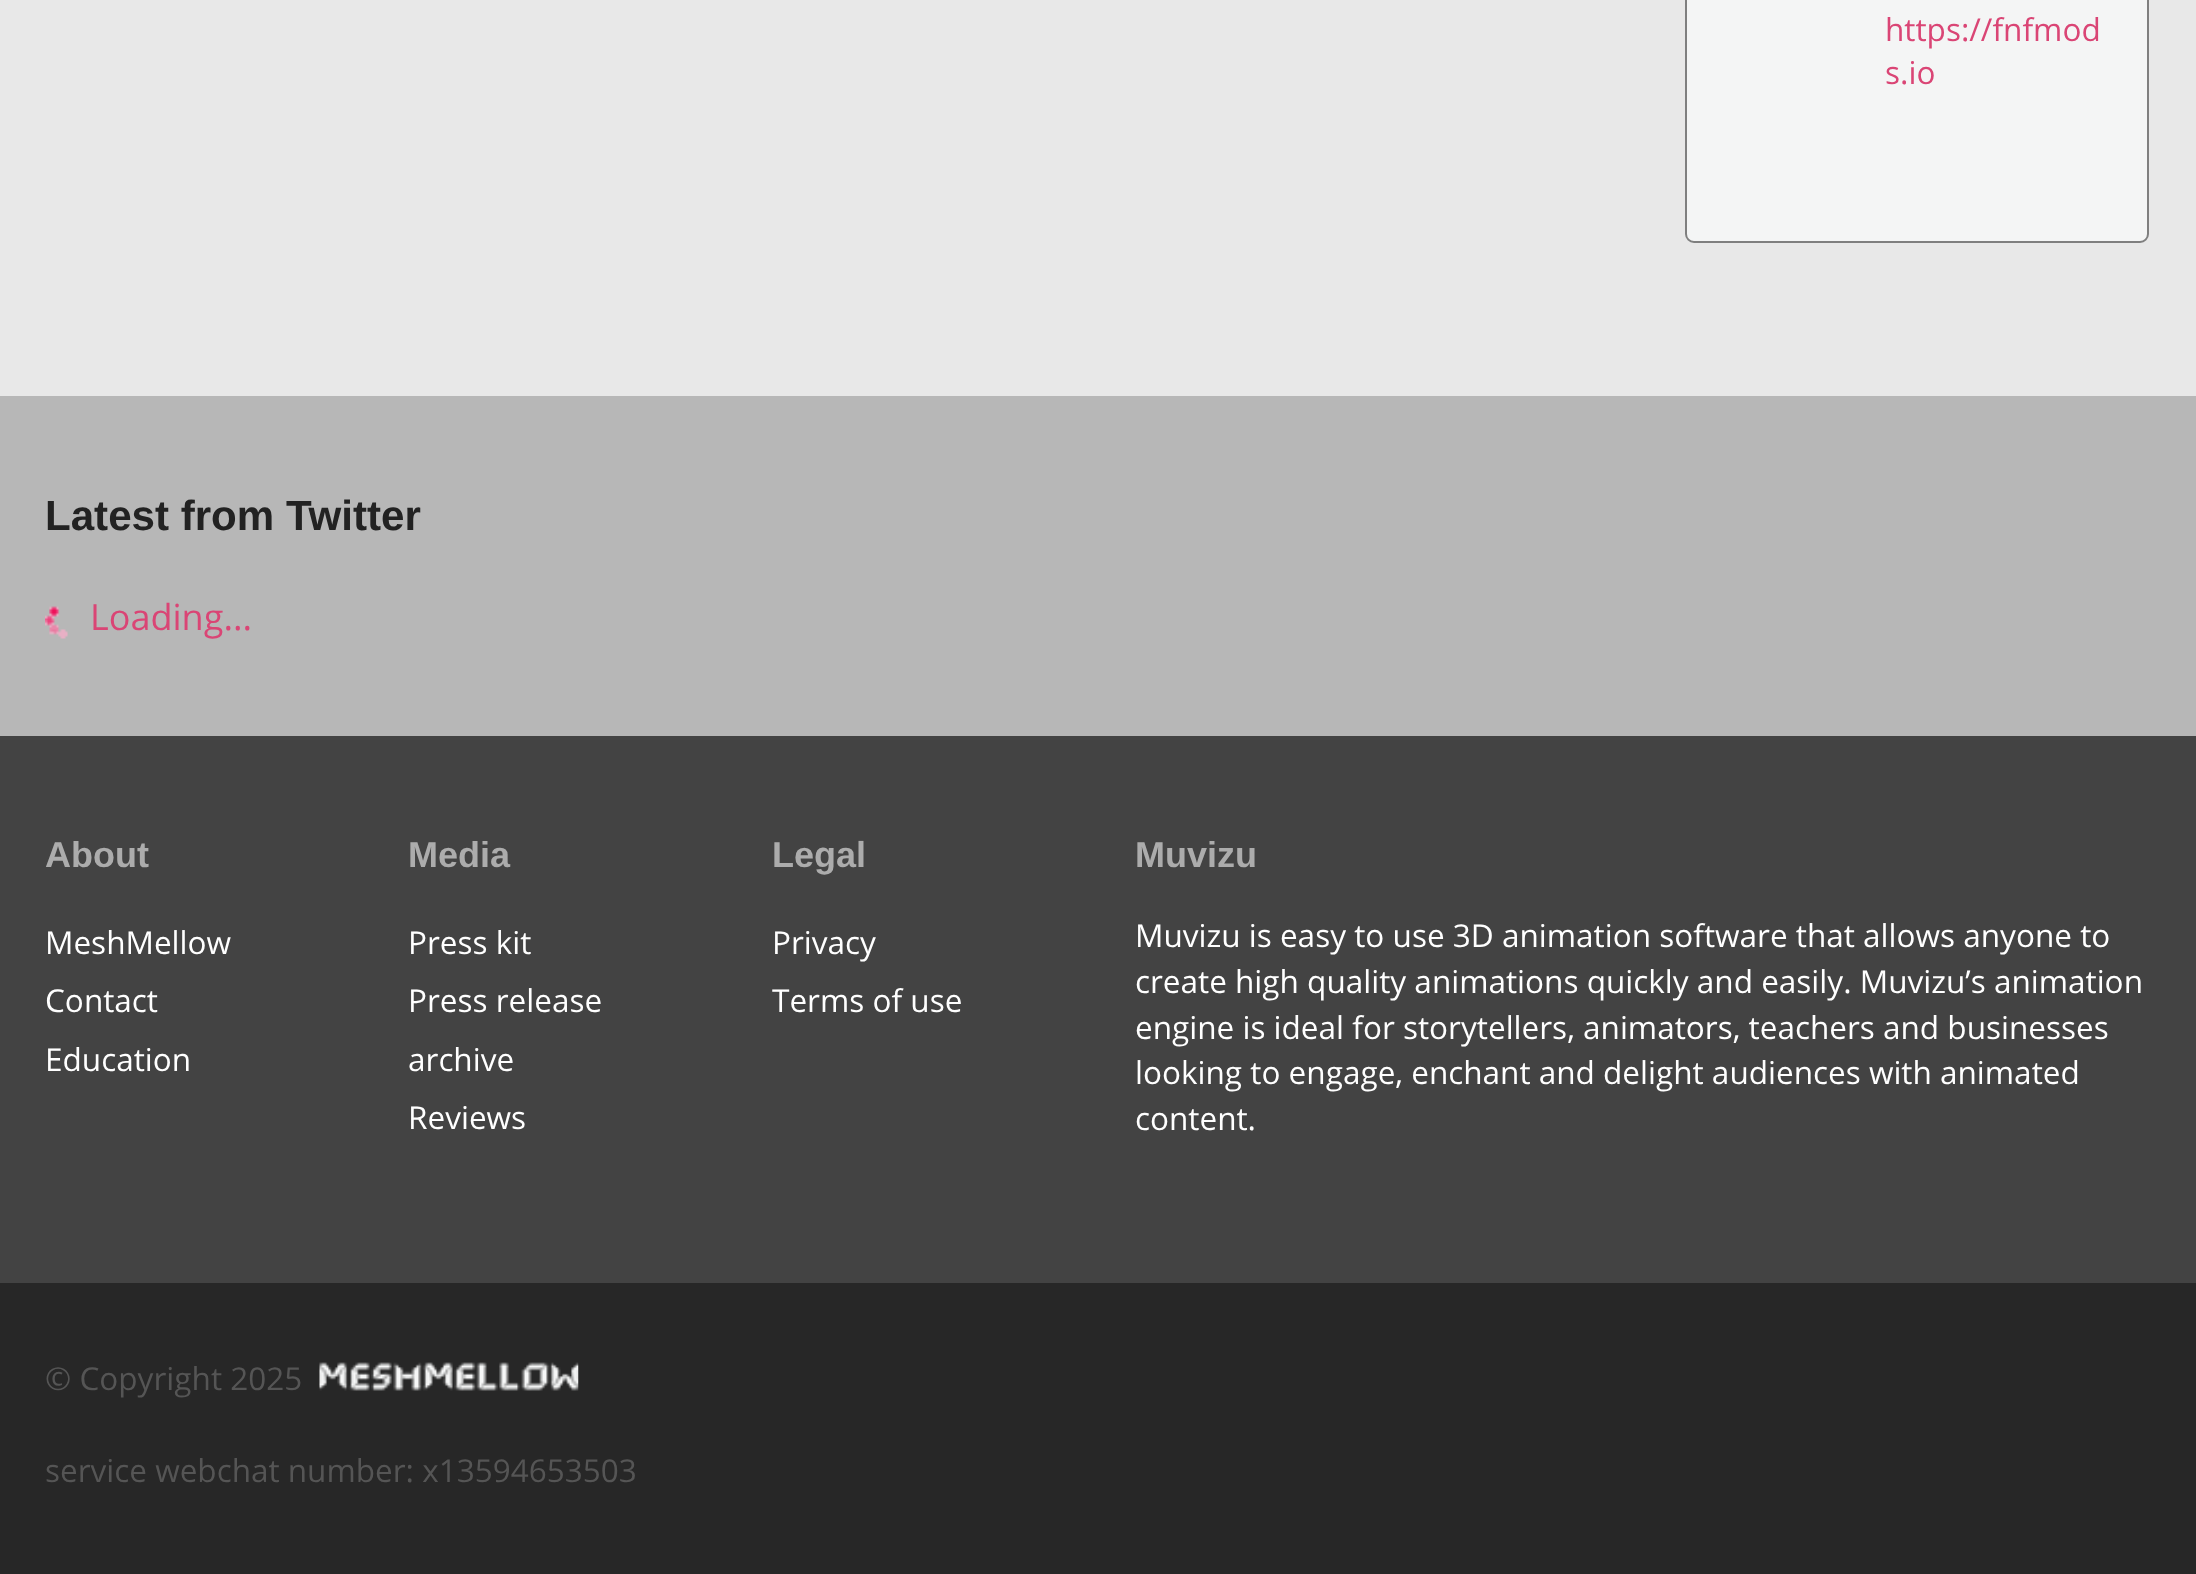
<svg xmlns="http://www.w3.org/2000/svg" width="2196" height="1574" viewBox="0 0 2196 1574">
  <rect width="100%" height="100%" fill="rgb(232,232,232)"/>
  <rect x="1686" y="-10" width="462" height="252" rx="8" fill="rgb(244,245,245)" stroke="rgb(127,127,127)" stroke-width="2"/>
  <g font-family="Open Sans" font-size="31.5" fill="rgb(218,69,117)">
    <text>
      <tspan x="1885" y="41">https://fnfmod</tspan>
      <tspan x="1885" y="84">s.io</tspan>
    </text>
  </g>
  <rect x="0" y="396" width="2196" height="340" fill="rgb(183,183,183)"/>
  <text x="45" y="530" font-family="Liberation Sans" font-size="42.1" font-weight="bold" fill="rgb(34,34,34)">Latest from Twitter</text>
  <image x="45" y="606" width="23" height="33" href="pic1.png"/>
  <text x="90" y="630" font-family="Open Sans" font-size="36" fill="rgb(218,69,117)">Loading...</text>
  <rect x="0" y="736" width="2196" height="547" fill="rgb(67,67,67)"/>
  <text x="45" y="867" font-family="Liberation Sans" font-size="36" font-weight="bold" fill="rgb(172,172,172)">About</text>
  <g font-family="Open Sans" font-size="31.5" fill="rgb(255,255,255)">
    <text>
      <tspan x="45" y="954">MeshMellow</tspan>
      <tspan x="45" y="1012">Contact</tspan>
      <tspan x="45" y="1071">Education</tspan>
    </text>
  </g>
  <text x="408" y="867" font-family="Liberation Sans" font-size="36" font-weight="bold" fill="rgb(172,172,172)">Media</text>
  <g font-family="Open Sans" font-size="31.5" fill="rgb(255,255,255)">
    <text>
      <tspan x="408" y="954">Press kit</tspan>
      <tspan x="408" y="1012">Press release</tspan>
      <tspan x="408" y="1071">archive</tspan>
      <tspan x="408" y="1129">Reviews</tspan>
    </text>
  </g>
  <text x="772" y="867" font-family="Liberation Sans" font-size="36" font-weight="bold" fill="rgb(172,172,172)">Legal</text>
  <g font-family="Open Sans" font-size="31.5" fill="rgb(255,255,255)">
    <text>
      <tspan x="772" y="954">Privacy</tspan>
      <tspan x="772" y="1012">Terms of use</tspan>
    </text>
  </g>
  <text x="1135" y="867" font-family="Liberation Sans" font-size="36" font-weight="bold" fill="rgb(172,172,172)">Muvizu</text>
  <g font-family="Open Sans" font-size="31.5" fill="rgb(255,255,255)">
    <text>
      <tspan x="1135" y="947">Muvizu is easy to use 3D animation software that allows anyone to</tspan>
      <tspan x="1135" y="993">create high quality animations quickly and easily. Muvizu’s animation</tspan>
      <tspan x="1135" y="1039">engine is ideal for storytellers, animators, teachers and businesses</tspan>
      <tspan x="1135" y="1084">looking to engage, enchant and delight audiences with animated</tspan>
      <tspan x="1135" y="1130">content.</tspan>
    </text>
  </g>
  <rect x="0" y="1283" width="2196" height="291" fill="rgb(39,39,39)"/>
  <text x="45" y="1390" font-family="Open Sans" font-size="31.5" fill="rgb(85,85,85)">© Copyright 2025</text>
  <image x="319" y="1362" width="260" height="29" href="pic2.png"/>
  <text x="45" y="1482" font-family="Open Sans" font-size="31.5" fill="rgb(85,85,85)">service webchat number: x13594653503</text>
</svg>
